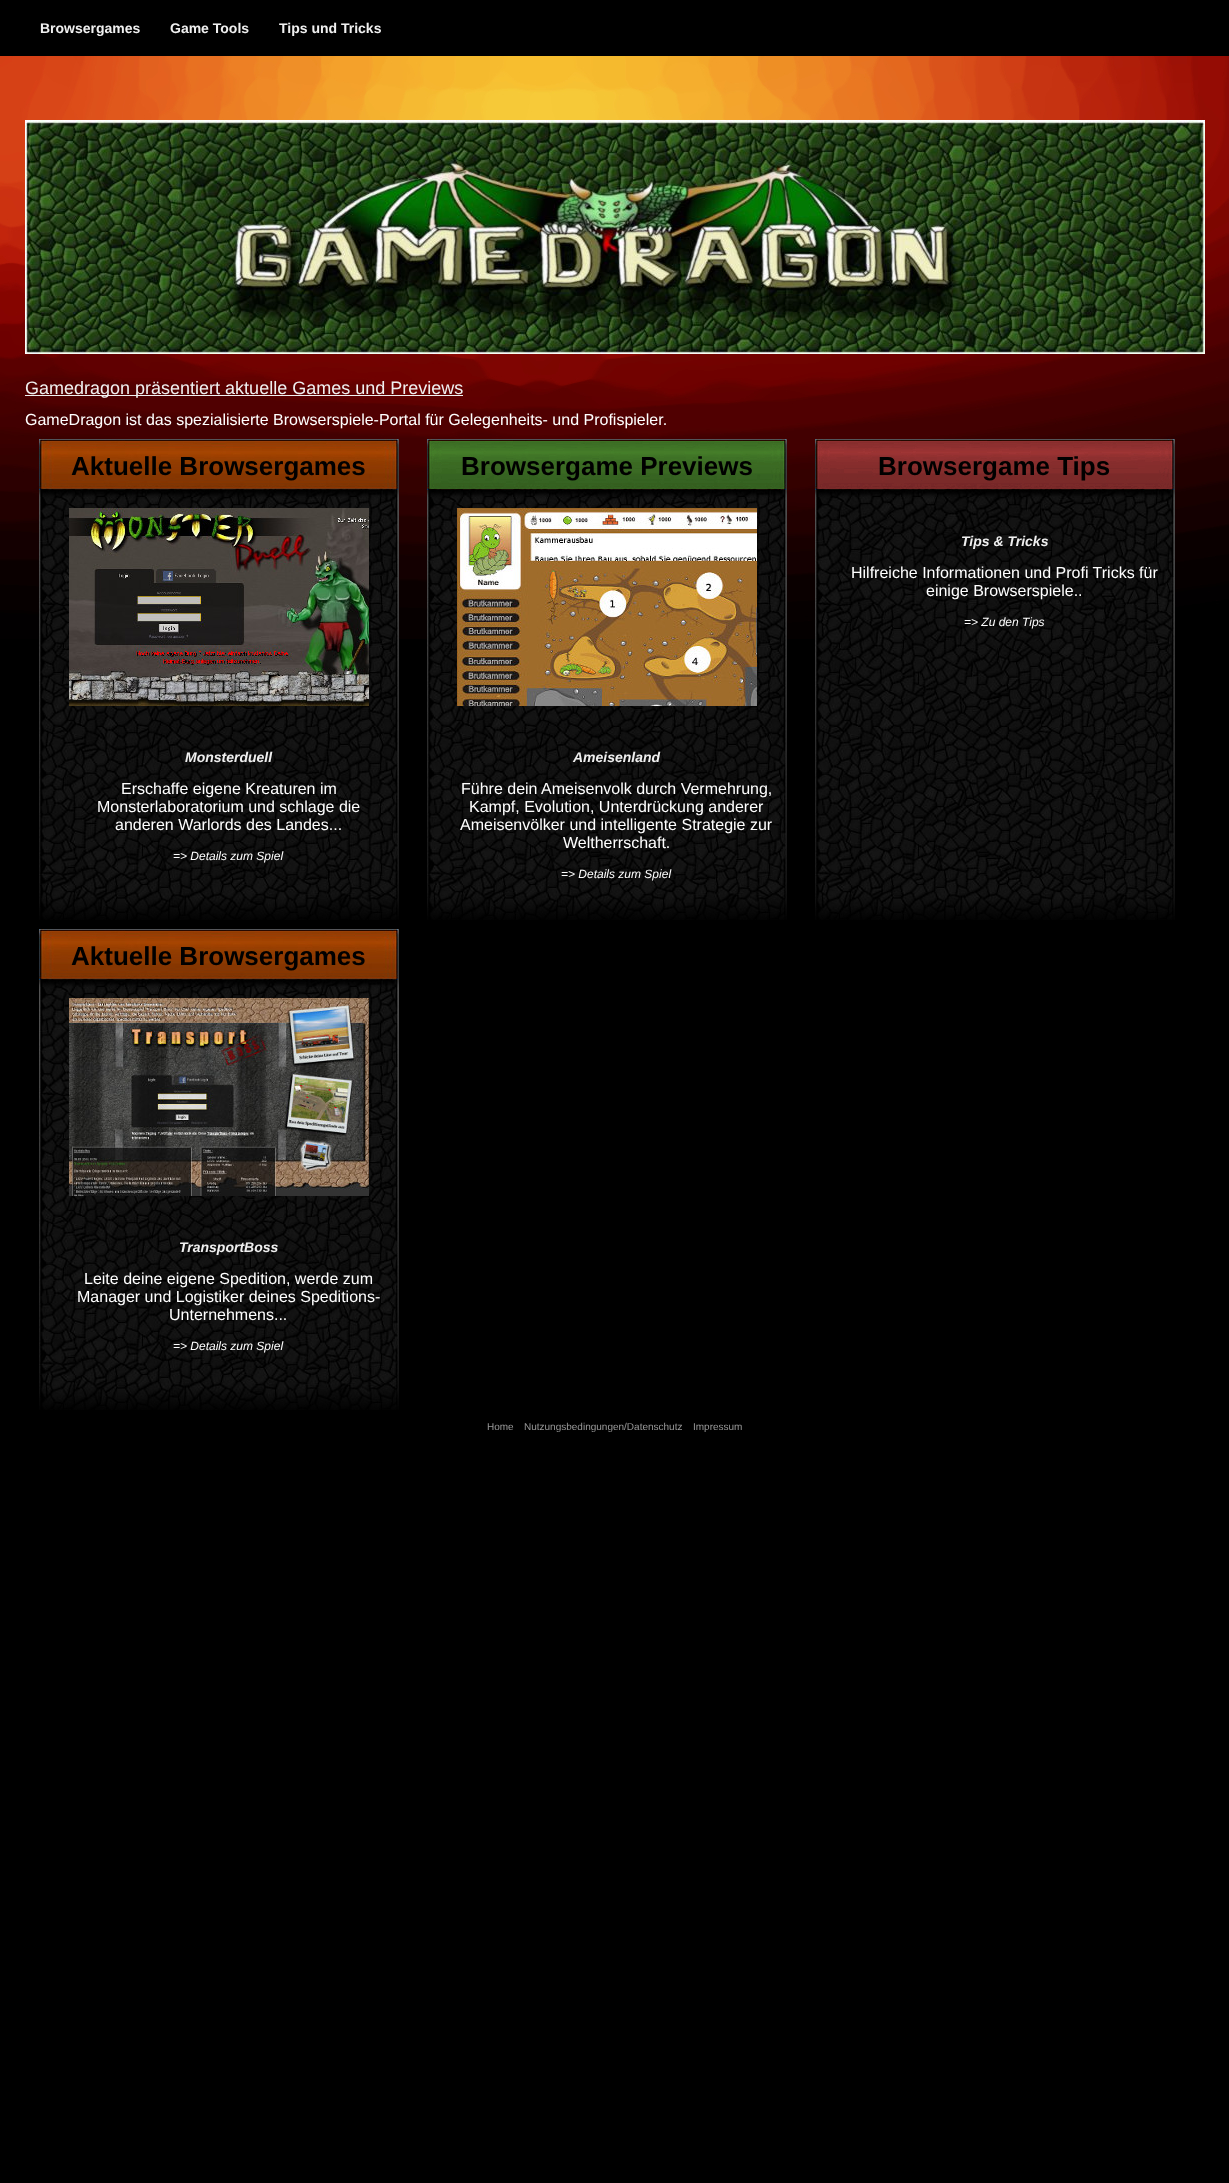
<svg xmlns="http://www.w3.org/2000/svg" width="1229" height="2183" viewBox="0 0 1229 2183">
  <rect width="100%" height="100%" fill="rgb(0,0,0)"/>
  <g font-family="Liberation Sans" font-size="14" font-weight="bold" fill="rgb(240,240,240)">
    <text x="40" y="33">Browsergames</text>
    <text x="170" y="33">Game Tools</text>
    <text x="279" y="33">Tips und Tricks</text>
  </g>
  <image x="0" y="56" width="1229" height="583" href="pic1.png"/>
  <image x="25" y="120" width="1180" height="234" href="pic2.png"/>
  <rect x="25" y="395" width="438" height="1" fill="rgb(240,240,240)"/>
  <text x="25" y="394" font-family="Liberation Sans" font-size="18" fill="rgb(240,240,240)">Gamedragon präsentiert aktuelle Games und Previews</text>
  <text x="25" y="425" font-family="Liberation Sans" font-size="16" fill="rgb(255,255,255)">GameDragon ist das spezialisierte Browserspiele-Portal für Gelegenheits- und Profispieler.</text>
  <image x="39" y="439" width="360" height="481" href="pic3.png"/>
  <text x="71" y="475" font-family="Liberation Sans" font-size="26" font-weight="bold" fill="rgb(0,0,0)">Aktuelle Browsergames</text>
  <image x="69" y="508" width="300" height="198" href="pic4.png"/>
  <text x="185" y="762" font-family="Liberation Sans" font-size="14" font-weight="bold" font-style="italic" fill="rgb(240,240,240)">Monsterduell</text>
  <g font-family="Liberation Sans" font-size="16" fill="rgb(255,255,255)">
    <text x="121" y="794">Erschaffe eigene Kreaturen im</text>
    <text x="97" y="812">Monsterlaboratorium und schlage die</text>
    <text x="115" y="830">anderen Warlords des Landes...</text>
  </g>
  <text x="173" y="860" font-family="Liberation Sans" font-size="12" font-style="italic" fill="rgb(255,255,255)">=&gt; Details zum Spiel</text>
  <image x="39" y="929" width="360" height="481" href="pic3.png"/>
  <text x="71" y="965" font-family="Liberation Sans" font-size="26" font-weight="bold" fill="rgb(0,0,0)">Aktuelle Browsergames</text>
  <image x="69" y="998" width="300" height="198" href="pic5.png"/>
  <text x="179" y="1252" font-family="Liberation Sans" font-size="14" font-weight="bold" font-style="italic" fill="rgb(240,240,240)">TransportBoss</text>
  <g font-family="Liberation Sans" font-size="16" fill="rgb(255,255,255)">
    <text x="84" y="1284">Leite deine eigene Spedition, werde zum</text>
    <text x="77" y="1302">Manager und Logistiker deines Speditions-</text>
    <text x="169" y="1320">Unternehmens...</text>
  </g>
  <text x="173" y="1350" font-family="Liberation Sans" font-size="12" font-style="italic" fill="rgb(255,255,255)">=&gt; Details zum Spiel</text>
  <image x="427" y="439" width="360" height="481" href="pic6.png"/>
  <text x="461" y="475" font-family="Liberation Sans" font-size="26" font-weight="bold" fill="rgb(0,0,0)">Browsergame Previews</text>
  <image x="457" y="508" width="300" height="198" href="pic7.png"/>
  <text x="573" y="762" font-family="Liberation Sans" font-size="14" font-weight="bold" font-style="italic" fill="rgb(240,240,240)">Ameisenland</text>
  <g font-family="Liberation Sans" font-size="16" fill="rgb(255,255,255)">
    <text x="461" y="794">Führe dein Ameisenvolk durch Vermehrung,</text>
    <text x="469" y="812">Kampf, Evolution, Unterdrückung anderer</text>
    <text x="460" y="830">Ameisenvölker und intelligente Strategie zur</text>
    <text x="563" y="848">Weltherrschaft.</text>
  </g>
  <text x="561" y="878" font-family="Liberation Sans" font-size="12" font-style="italic" fill="rgb(255,255,255)">=&gt; Details zum Spiel</text>
  <image x="815" y="439" width="360" height="481" href="pic8.png"/>
  <text x="878" y="475" font-family="Liberation Sans" font-size="26" font-weight="bold" fill="rgb(0,0,0)">Browsergame Tips</text>
  <text x="961" y="546" font-family="Liberation Sans" font-size="14" font-weight="bold" font-style="italic" fill="rgb(240,240,240)">Tips &amp; Tricks</text>
  <g font-family="Liberation Sans" font-size="16" fill="rgb(255,255,255)">
    <text x="851" y="578">Hilfreiche Informationen und Profi Tricks für</text>
    <text x="926" y="596">einige Browserspiele..</text>
  </g>
  <text x="964" y="626" font-family="Liberation Sans" font-size="12" font-style="italic" fill="rgb(255,255,255)">=&gt; Zu den Tips</text>
  <g font-family="Liberation Sans" font-size="10" fill="rgb(153,153,153)">
    <text x="487" y="1430">Home</text>
    <text x="524" y="1430">Nutzungsbedingungen/Datenschutz</text>
    <text x="693" y="1430">Impressum</text>
  </g>
</svg>
